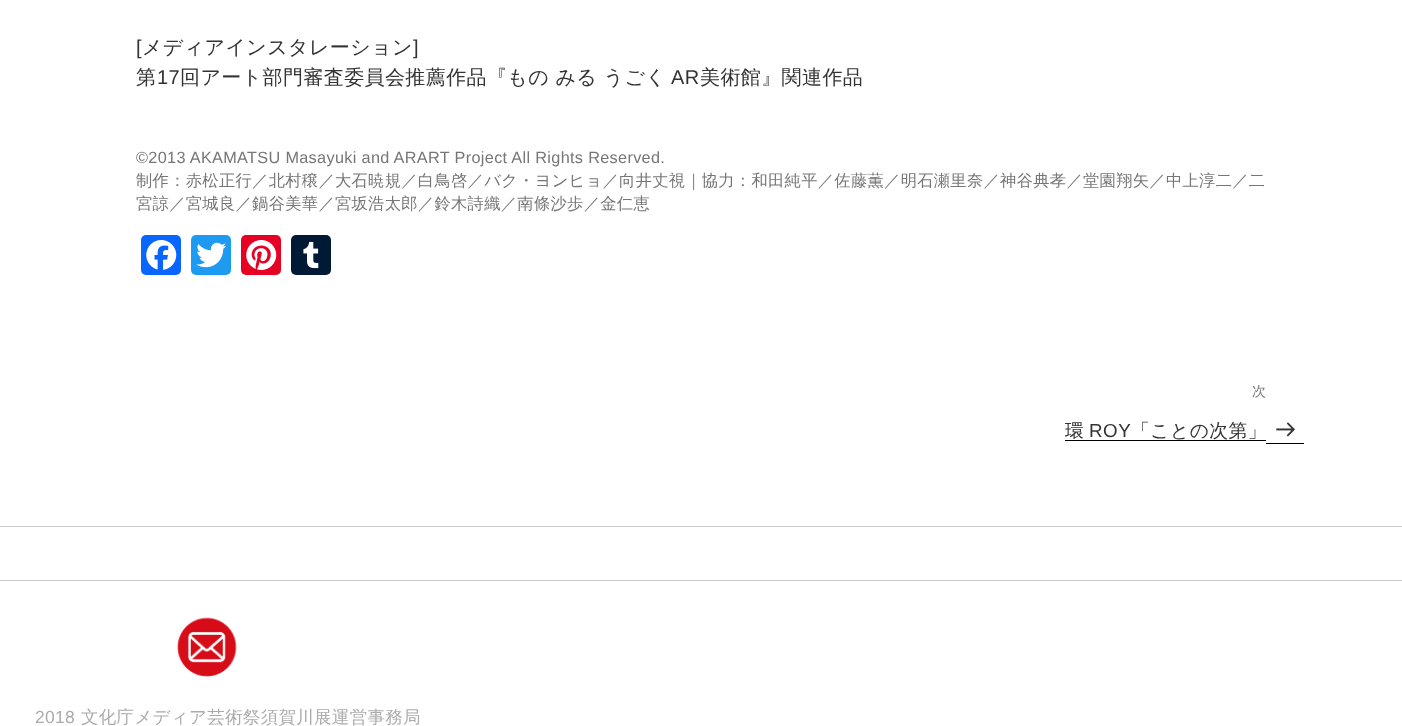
<svg xmlns="http://www.w3.org/2000/svg" width="1402" height="726" viewBox="0 0 1402 726">
  <rect width="100%" height="100%" fill="rgb(255,255,255)"/>
  <rect x="0" y="526" width="1402" height="1" fill="rgb(204,204,204)"/>
  <text x="136" y="54" font-family="Liberation Sans" font-size="20" letter-spacing="0.4" fill="rgb(51,51,51)">[</text>
  <text x="142" y="54" font-family="WenQuanYi Zen Hei" font-size="20" font-weight="500" letter-spacing="0.4" fill="rgb(51,51,51)">メディアインスタレーション</text>
  <text x="413" y="54" font-family="Liberation Sans" font-size="20" letter-spacing="0.4" fill="rgb(51,51,51)">]</text>
  <text x="136" y="84" font-family="WenQuanYi Zen Hei" font-size="20" font-weight="500" letter-spacing="0.4" fill="rgb(51,51,51)">第</text>
  <text x="157" y="84" font-family="Liberation Sans" font-size="20" letter-spacing="0.4" fill="rgb(51,51,51)">17</text>
  <text x="180" y="84" font-family="WenQuanYi Zen Hei" font-size="20" font-weight="500" letter-spacing="0.4" fill="rgb(51,51,51)">回アート部門審査委員会推薦作品『もの みる うごく</text>
  <text x="671" y="84" font-family="Liberation Sans" font-size="20" letter-spacing="0.4" fill="rgb(51,51,51)">AR</text>
  <text x="700" y="84" font-family="WenQuanYi Zen Hei" font-size="20" font-weight="500" letter-spacing="0.4" fill="rgb(51,51,51)">美術館』関連作品</text>
  <text x="136" y="163" font-family="Liberation Sans" font-size="16.25" letter-spacing="0.33" fill="rgb(118,118,118)">©2013 AKAMATSU Masayuki and ARART Project All Rights Reserved.</text>
  <g font-family="WenQuanYi Zen Hei" font-size="16.25" font-weight="500" letter-spacing="0.33" fill="rgb(118,118,118)">
    <text>
      <tspan x="136" y="186">制作：赤松正行／北村穣／大石暁規／白鳥啓／バク・ヨンヒョ／向井丈視｜協力：和田純平／佐藤薫／明石瀬里奈／神谷典孝／堂園翔矢／中上淳二／二</tspan>
      <tspan x="136" y="209">宮諒／宮城良／鍋谷美華／宮坂浩太郎／鈴木詩織／南條沙歩／金仁恵</tspan>
    </text>
  </g>
  <rect x="141" y="235" width="40" height="40" rx="5" fill="rgb(8,102,255)"/>
  <image x="146" y="240" width="31" height="30" href="pic1.png"/>
  <rect x="191" y="235" width="40" height="40" rx="5" fill="rgb(29,155,240)"/>
  <image x="196" y="242" width="31" height="26" href="pic2.png"/>
  <rect x="241" y="235" width="40" height="40" rx="5" fill="rgb(230,0,35)"/>
  <image x="246" y="240" width="31" height="30" href="pic3.png"/>
  <rect x="291" y="235" width="40" height="40" rx="5" fill="rgb(0,25,53)"/>
  <image x="303" y="241" width="16" height="28" href="pic4.png"/>
  <rect x="1065" y="440" width="201" height="1" fill="rgb(0,0,0)"/>
  <rect x="1266" y="443" width="38" height="1" fill="rgb(0,0,0)"/>
  <text x="1252" y="396" font-family="WenQuanYi Zen Hei" font-size="14" font-weight="500" fill="rgb(118,118,118)">次</text>
  <text x="1065" y="437" font-family="WenQuanYi Zen Hei" font-size="18.75" font-weight="500" letter-spacing="0.5" fill="rgb(51,51,51)">環</text>
  <text x="1089" y="437" font-family="Liberation Sans" font-size="18.75" letter-spacing="0.5" fill="rgb(51,51,51)">ROY</text>
  <text x="1131" y="437" font-family="WenQuanYi Zen Hei" font-size="18.75" font-weight="500" letter-spacing="0.5" fill="rgb(51,51,51)">「ことの次第」</text>
  <image x="1276" y="422" width="19" height="15" href="pic5.png"/>
  <rect x="0" y="580" width="1402" height="1" fill="rgb(204,204,204)"/>
  <image x="177" y="617" width="60" height="60" href="pic6.png"/>
  <text x="35" y="723" font-family="Liberation Sans" font-size="17.5" letter-spacing="0.3" fill="rgb(171,171,171)">2018</text>
  <text x="81" y="723" font-family="WenQuanYi Zen Hei" font-size="17.5" font-weight="500" letter-spacing="0.3" fill="rgb(171,171,171)">文化庁メディア芸術祭須賀川展運営事務局</text>
</svg>
